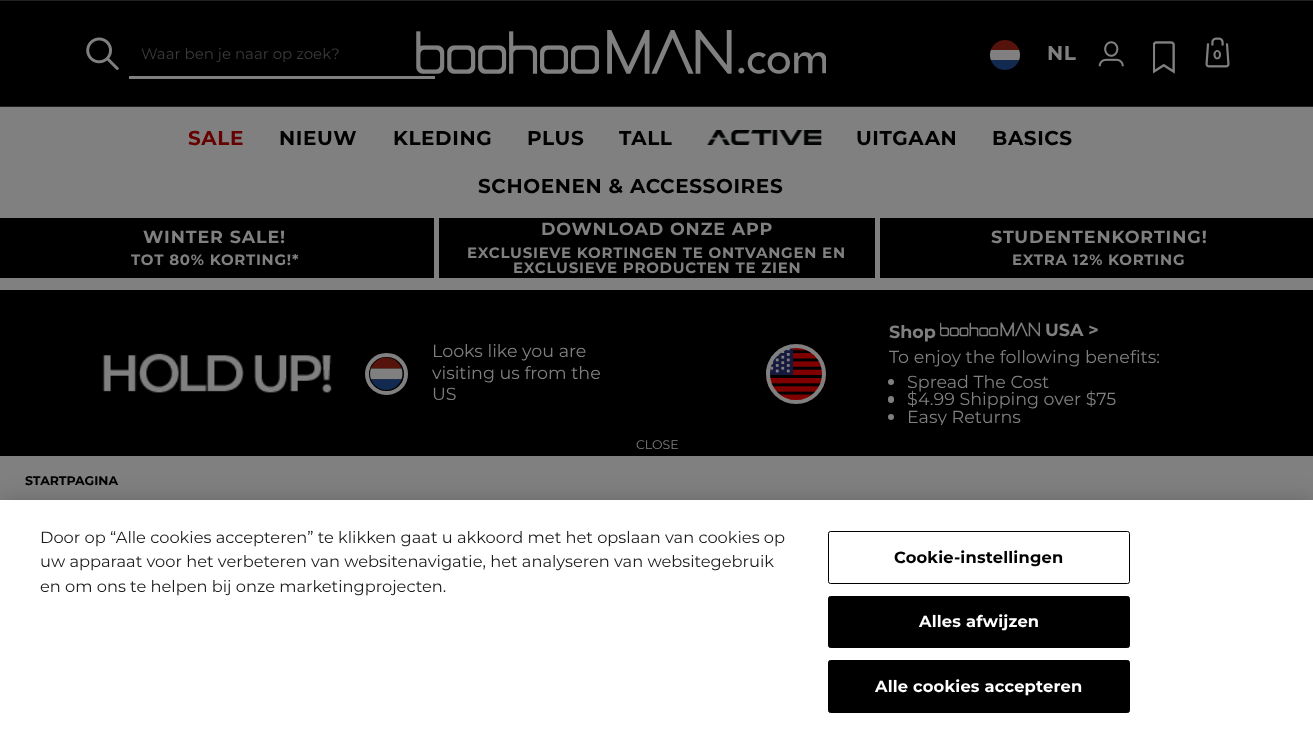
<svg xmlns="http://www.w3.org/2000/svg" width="1313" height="737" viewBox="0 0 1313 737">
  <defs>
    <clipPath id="clip1"><rect x="670" y="321" width="631" height="104"/></clipPath>
  </defs>
  <rect width="100%" height="100%" fill="rgb(128,128,128)"/>
  <rect x="0" y="1" width="1313" height="105" fill="rgb(0,0,0)"/>
  <rect x="0" y="0" width="1313" height="1" fill="rgb(33,33,33)"/>
  <rect x="0" y="106" width="1313" height="1" fill="rgb(33,33,33)"/>
  <image x="86" y="37" width="33" height="33" href="pic1.png"/>
  <rect x="129" y="76" width="306" height="3" fill="rgb(128,128,128)"/>
  <text x="141" y="59" font-family="Montserrat" font-size="15" fill="rgb(59,59,59)">Waar ben je naar op zoek?</text>
  <image x="416" y="30" width="410" height="44" href="pic2.png"/>
  <image x="989" y="40" width="32" height="30" href="pic3.png"/>
  <text x="1047" y="60" font-family="Montserrat" font-size="20" font-weight="bold" letter-spacing="0.6" fill="rgb(128,128,128)">NL</text>
  <image x="1098" y="41" width="26" height="26" href="pic4.png"/>
  <image x="1153" y="41" width="22" height="33" href="pic5.png"/>
  <image x="1205" y="37" width="25" height="31" href="pic6.png"/>
  <text x="1213" y="59" font-family="Montserrat" font-size="12.5" font-weight="bold" fill="rgb(128,128,128)">0</text>
  <text x="188" y="145" font-family="Montserrat" font-size="20" font-weight="bold" letter-spacing="0.6" fill="rgb(103,0,0)">SALE</text>
  <g font-family="Montserrat" font-size="20" font-weight="bold" letter-spacing="0.6" fill="rgb(0,0,0)">
    <text x="279" y="145">NIEUW</text>
    <text x="393" y="145">KLEDING</text>
    <text x="527" y="145">PLUS</text>
    <text x="619" y="145">TALL</text>
  </g>
  <image x="707" y="130" width="115" height="15" href="pic7.png"/>
  <g font-family="Montserrat" font-size="20" font-weight="bold" letter-spacing="0.6" fill="rgb(0,0,0)">
    <text x="856" y="145">UITGAAN</text>
    <text x="992" y="145">BASICS</text>
    <text x="478" y="193">SCHOENEN &amp; ACCESSOIRES</text>
  </g>
  <rect x="0" y="218" width="434" height="60" fill="rgb(0,0,0)"/>
  <text x="143" y="243" font-family="Montserrat" font-size="17.5" font-weight="bold" letter-spacing="0.9" fill="rgb(128,128,128)">WINTER SALE!</text>
  <text x="131" y="265" font-family="Montserrat" font-size="15" font-weight="bold" letter-spacing="0.75" fill="rgb(128,128,128)">TOT 80% KORTING!*</text>
  <rect x="439" y="218" width="436" height="60" fill="rgb(0,0,0)"/>
  <text x="541" y="235" font-family="Montserrat" font-size="17.5" font-weight="bold" letter-spacing="0.9" fill="rgb(128,128,128)">DOWNLOAD ONZE APP</text>
  <g font-family="Montserrat" font-size="15" font-weight="bold" letter-spacing="0.75" fill="rgb(128,128,128)">
    <text x="467" y="258">EXCLUSIEVE KORTINGEN TE ONTVANGEN EN</text>
    <text x="513" y="273">EXCLUSIEVE PRODUCTEN TE ZIEN</text>
  </g>
  <rect x="880" y="218" width="433" height="60" fill="rgb(0,0,0)"/>
  <text x="991" y="243" font-family="Montserrat" font-size="17.5" font-weight="bold" letter-spacing="0.9" fill="rgb(128,128,128)">STUDENTENKORTING!</text>
  <text x="1012" y="265" font-family="Montserrat" font-size="15" font-weight="bold" letter-spacing="0.75" fill="rgb(128,128,128)">EXTRA 12% KORTING</text>
  <rect x="0" y="290" width="1313" height="166" fill="rgb(0,0,0)"/>
  <image x="102" y="353" width="230" height="40" href="pic8.png"/>
  <image x="370" y="357" width="33" height="33" href="pic9.png"/>
  <rect x="367" y="355" width="39" height="38" rx="19" fill="none" stroke="rgb(128,128,128)" stroke-width="4"/>
  <g font-family="Montserrat" font-size="17.5" fill="rgb(128,128,128)">
    <text>
      <tspan x="432" y="357">Looks like you are</tspan>
      <tspan x="432" y="379">visiting us from the</tspan>
      <tspan x="432" y="400">US</tspan>
    </text>
  </g>
  <text x="636" y="449" font-family="Montserrat" font-size="12.5" fill="rgb(128,128,128)">CLOSE</text>
  <image x="766" y="348" width="60" height="52" href="pic10.png"/>
  <circle cx="796" cy="374" r="28" fill="none" stroke="rgb(128,128,128)" stroke-width="4"/>
  <text x="889" y="338" font-family="Montserrat" font-size="17.5" font-weight="bold" fill="rgb(128,128,128)">Shop</text>
  <image x="940" y="322" width="100" height="15" href="pic11.png"/>
  <text x="1045" y="336" font-family="Montserrat" font-size="17.5" font-weight="bold" fill="rgb(128,128,128)">USA &gt;</text>
  <text x="889" y="363" font-family="Montserrat" font-size="17.5" fill="rgb(128,128,128)">To enjoy the following benefits:</text>
  <circle cx="891" cy="382" r="3" fill="rgb(128,128,128)"/>
  <text x="907" y="388" font-family="Montserrat" font-size="17.5" fill="rgb(128,128,128)">Spread The Cost</text>
  <rect x="888" y="396" width="6" height="7" rx="3" fill="rgb(128,128,128)"/>
  <text x="907" y="405" font-family="Montserrat" font-size="17.5" fill="rgb(128,128,128)">$4.99 Shipping over $75</text>
  <circle cx="891" cy="417" r="3" fill="rgb(128,128,128)"/>
  <g clip-path="url(#clip1)">
    <text x="907" y="423" font-family="Montserrat" font-size="17.5" fill="rgb(128,128,128)">Easy Returns</text>
  </g>
  <text x="25" y="485" font-family="Montserrat" font-size="12.5" font-weight="bold" fill="rgb(0,0,0)">STARTPAGINA</text>
  <rect x="0" y="500" width="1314" height="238" fill="rgba(0,0,0,0.2)" filter="blur(11px)"/>
  <rect x="0" y="500" width="1313" height="237" fill="rgb(255,255,255)"/>
  <g font-family="Montserrat" font-size="16.25" fill="rgb(27,27,27)">
    <text>
      <tspan x="40" y="543">Door op “Alle cookies accepteren” te klikken gaat u akkoord met het opslaan van cookies op</tspan>
      <tspan x="40" y="567">uw apparaat voor het verbeteren van websitenavigatie, het analyseren van websitegebruik</tspan>
      <tspan x="40" y="592">en om ons te helpen bij onze marketingprojecten.</tspan>
    </text>
  </g>
  <rect x="828.5" y="531.5" width="301" height="52" rx="2" fill="none" stroke="rgb(0,0,0)"/>
  <text x="894" y="563" font-family="Montserrat" font-size="16.25" font-weight="bold" letter-spacing="0.2" fill="rgb(0,0,0)">Cookie-instellingen</text>
  <rect x="828.5" y="596.5" width="301" height="51" rx="2" fill="rgb(0,0,0)" stroke="rgb(0,0,0)"/>
  <text x="919" y="627" font-family="Montserrat" font-size="16.25" font-weight="bold" letter-spacing="0.2" fill="rgb(255,255,255)">Alles afwijzen</text>
  <rect x="828.5" y="660.5" width="301" height="52" rx="2" fill="rgb(0,0,0)" stroke="rgb(0,0,0)"/>
  <text x="875" y="692" font-family="Montserrat" font-size="16.25" font-weight="bold" letter-spacing="0.2" fill="rgb(255,255,255)">Alle cookies accepteren</text>
</svg>
